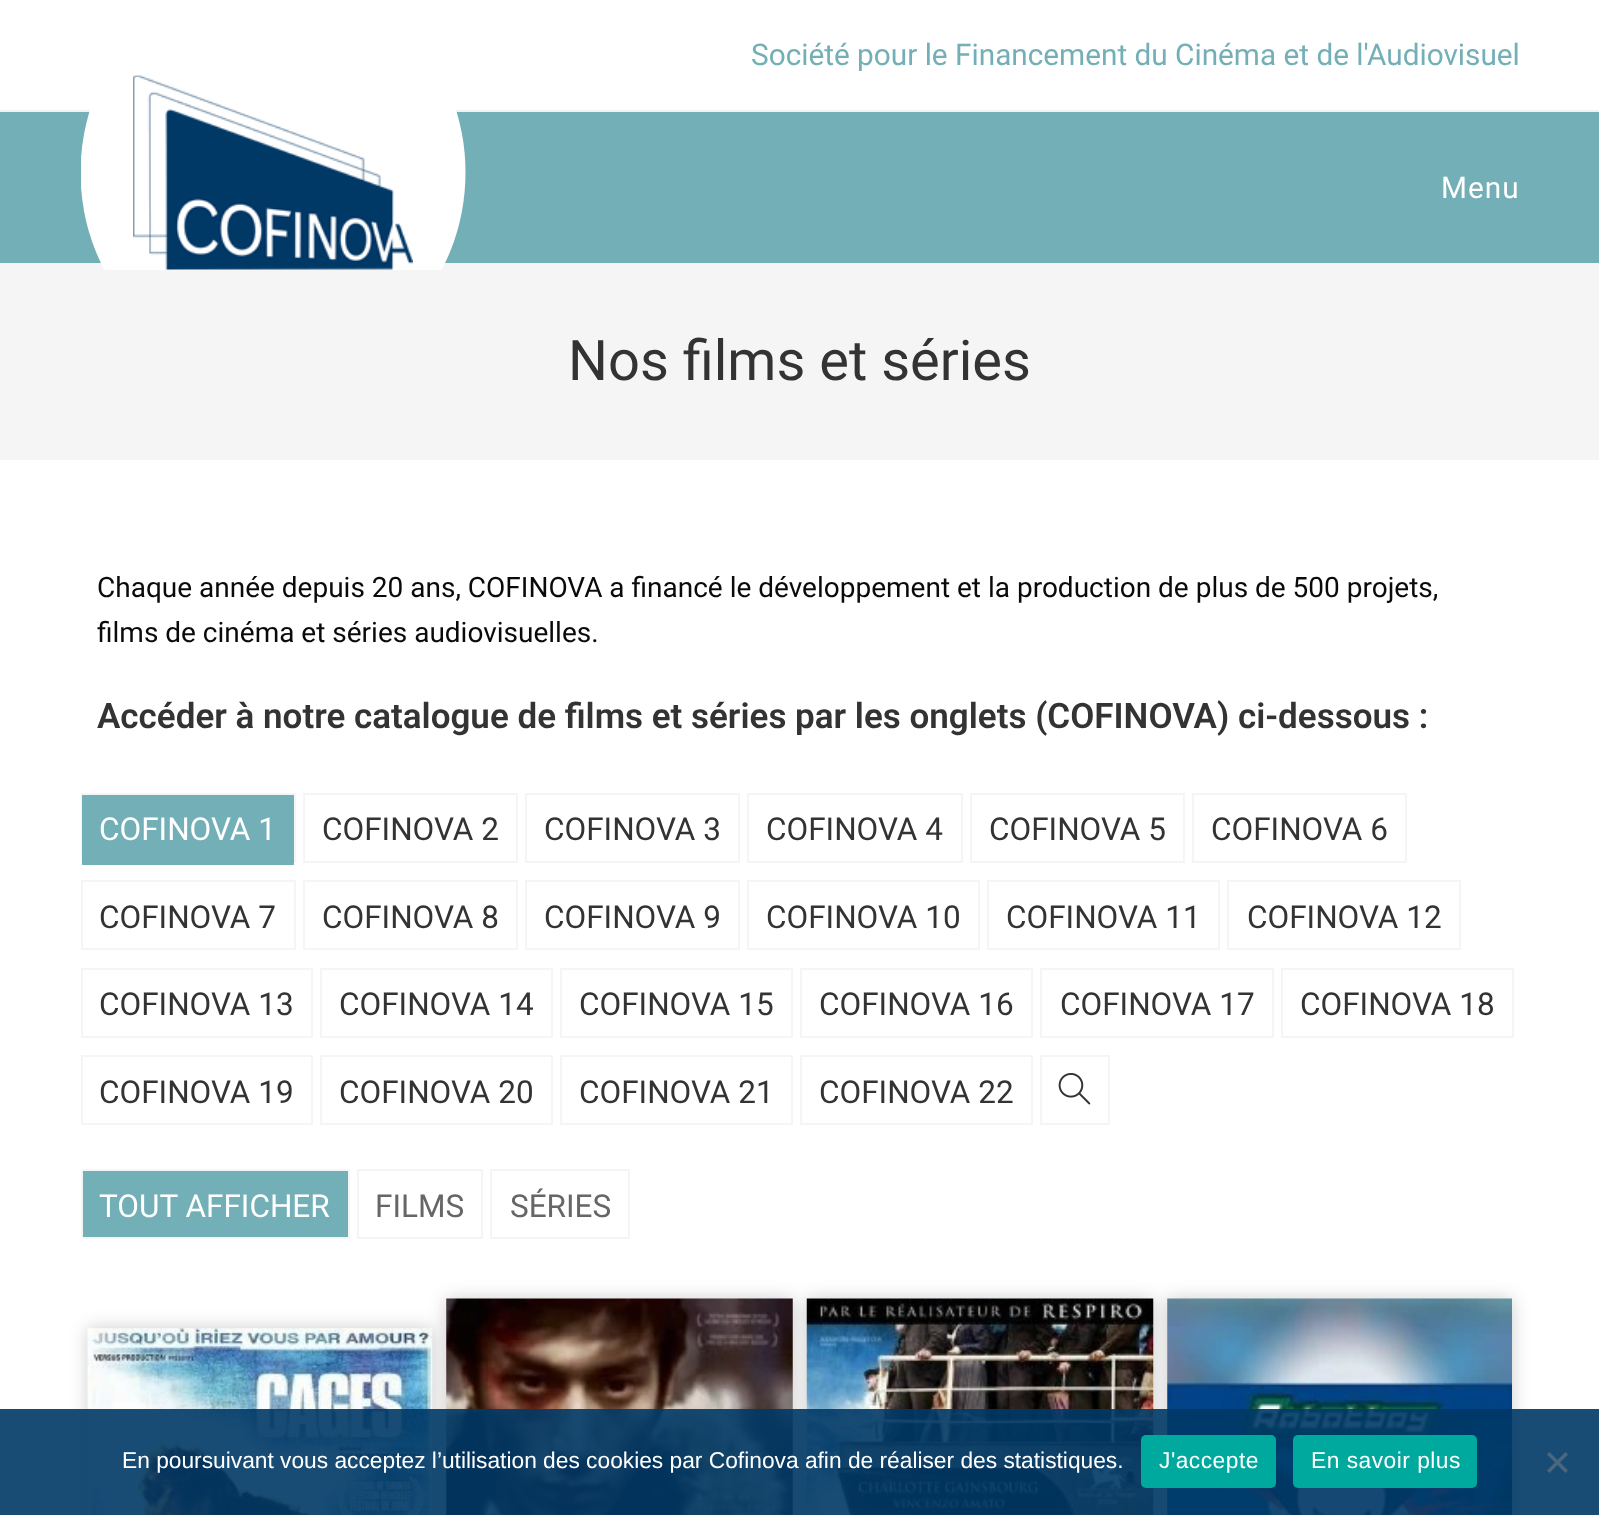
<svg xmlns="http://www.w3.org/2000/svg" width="1599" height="1515">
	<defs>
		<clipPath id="clip1"><rect x="81" y="75" width="385" height="195" /></clipPath>
	</defs>
	<rect width="100%" height="100%" fill="#FFFFFF" />
	<rect x="0" y="110" width="1599" height="2" fill="#F1F1F1" />
	<text x="751" y="65" font-family="Roboto" font-size="29.75" fill="#73AFB6">Société pour le Financement du Cinéma et de l'Audiovisuel</text>
	<rect x="0" y="112" width="1599" height="151" fill="#73AFB6" />
	<rect x="0" y="263" width="1599" height="197" fill="#F5F5F5" />
	<g clip-path="url(#clip1)">
		<ellipse cx="273" cy="172.5" rx="192.5" ry="202" fill="#FFFFFF" />
	</g>
	<image x="133" y="75" width="280" height="195" href="assets/img1.png" />
	<text x="1441" y="198" font-family="Roboto" font-size="29.75" letter-spacing="1" fill="#FFFFFF">Menu</text>
	<text x="568" y="380" font-family="Roboto" font-size="56" fill="#333333">Nos films et séries</text>
	<g font-family="Roboto" font-size="28" fill="#0A0A0A">
		<text x="97" y="597">Chaque année depuis 20 ans, COFINOVA a financé le développement et la production de plus de 500 projets,</text>
		<text x="97" y="642">films de cinéma et séries audiovisuelles.</text>
	</g>
	<text x="97" y="728" font-family="Roboto" font-size="35" font-weight="600" fill="#333333">Accéder à notre catalogue de films et séries par les onglets (COFINOVA) ci-dessous :</text>
	<rect x="82" y="794" width="213" height="68" fill="none" stroke="#F5F5F5" stroke-width="2" />
	<rect x="82" y="795" width="212" height="70" fill="#73AFB6" />
	<text x="99" y="840" font-family="Roboto" font-size="31.5" fill="#FFFFFF">COFINOVA 1</text>
	<rect x="304" y="794" width="213" height="68" fill="none" stroke="#F5F5F5" stroke-width="2" />
	<text x="322" y="840" font-family="Roboto" font-size="31.5" fill="#333333">COFINOVA 2</text>
	<rect x="526" y="794" width="213" height="68" fill="none" stroke="#F5F5F5" stroke-width="2" />
	<text x="544" y="840" font-family="Roboto" font-size="31.5" fill="#333333">COFINOVA 3</text>
	<rect x="748" y="794" width="214" height="68" fill="none" stroke="#F5F5F5" stroke-width="2" />
	<text x="766" y="840" font-family="Roboto" font-size="31.5" fill="#333333">COFINOVA 4</text>
	<rect x="971" y="794" width="213" height="68" fill="none" stroke="#F5F5F5" stroke-width="2" />
	<text x="989" y="840" font-family="Roboto" font-size="31.5" fill="#333333">COFINOVA 5</text>
	<rect x="1193" y="794" width="213" height="68" fill="none" stroke="#F5F5F5" stroke-width="2" />
	<text x="1211" y="840" font-family="Roboto" font-size="31.5" fill="#333333">COFINOVA 6</text>
	<rect x="82" y="881" width="213" height="68" fill="none" stroke="#F5F5F5" stroke-width="2" />
	<text x="99" y="928" font-family="Roboto" font-size="31.5" fill="#333333">COFINOVA 7</text>
	<rect x="304" y="881" width="213" height="68" fill="none" stroke="#F5F5F5" stroke-width="2" />
	<text x="322" y="928" font-family="Roboto" font-size="31.5" fill="#333333">COFINOVA 8</text>
	<rect x="526" y="881" width="213" height="68" fill="none" stroke="#F5F5F5" stroke-width="2" />
	<text x="544" y="928" font-family="Roboto" font-size="31.5" fill="#333333">COFINOVA 9</text>
	<rect x="748" y="881" width="231" height="68" fill="none" stroke="#F5F5F5" stroke-width="2" />
	<text x="766" y="928" font-family="Roboto" font-size="31.5" fill="#333333">COFINOVA 10</text>
	<rect x="988" y="881" width="231" height="68" fill="none" stroke="#F5F5F5" stroke-width="2" />
	<text x="1006" y="928" font-family="Roboto" font-size="31.5" fill="#333333">COFINOVA 11</text>
	<rect x="1228" y="881" width="232" height="68" fill="none" stroke="#F5F5F5" stroke-width="2" />
	<text x="1247" y="928" font-family="Roboto" font-size="31.5" fill="#333333">COFINOVA 12</text>
	<rect x="82" y="969" width="230" height="68" fill="none" stroke="#F5F5F5" stroke-width="2" />
	<text x="99" y="1015" font-family="Roboto" font-size="31.5" fill="#333333">COFINOVA 13</text>
	<rect x="321" y="969" width="231" height="68" fill="none" stroke="#F5F5F5" stroke-width="2" />
	<text x="339" y="1015" font-family="Roboto" font-size="31.5" fill="#333333">COFINOVA 14</text>
	<rect x="561" y="969" width="231" height="68" fill="none" stroke="#F5F5F5" stroke-width="2" />
	<text x="579" y="1015" font-family="Roboto" font-size="31.5" fill="#333333">COFINOVA 15</text>
	<rect x="801" y="969" width="231" height="68" fill="none" stroke="#F5F5F5" stroke-width="2" />
	<text x="819" y="1015" font-family="Roboto" font-size="31.5" fill="#333333">COFINOVA 16</text>
	<rect x="1041" y="969" width="232" height="68" fill="none" stroke="#F5F5F5" stroke-width="2" />
	<text x="1060" y="1015" font-family="Roboto" font-size="31.5" fill="#333333">COFINOVA 17</text>
	<rect x="1282" y="969" width="231" height="68" fill="none" stroke="#F5F5F5" stroke-width="2" />
	<text x="1300" y="1015" font-family="Roboto" font-size="31.5" fill="#333333">COFINOVA 18</text>
	<rect x="82" y="1056" width="230" height="68" fill="none" stroke="#F5F5F5" stroke-width="2" />
	<text x="99" y="1103" font-family="Roboto" font-size="31.5" fill="#333333">COFINOVA 19</text>
	<rect x="321" y="1056" width="231" height="68" fill="none" stroke="#F5F5F5" stroke-width="2" />
	<text x="339" y="1103" font-family="Roboto" font-size="31.5" fill="#333333">COFINOVA 20</text>
	<rect x="561" y="1056" width="231" height="68" fill="none" stroke="#F5F5F5" stroke-width="2" />
	<text x="579" y="1103" font-family="Roboto" font-size="31.5" fill="#333333">COFINOVA 21</text>
	<rect x="801" y="1056" width="231" height="68" fill="none" stroke="#F5F5F5" stroke-width="2" />
	<text x="819" y="1103" font-family="Roboto" font-size="31.5" fill="#333333">COFINOVA 22</text>
	<rect x="1041" y="1056" width="68" height="68" fill="none" stroke="#F5F5F5" stroke-width="2" />
	<image x="1058" y="1073" width="33" height="32" href="assets/img2.png" />
	<rect x="82" y="1170" width="267" height="68" fill="#73AFB6" stroke="#F5F5F5" stroke-width="2" />
	<text x="99" y="1217" font-family="Roboto" font-size="31.5" fill="#FFFFFF">TOUT AFFICHER</text>
	<rect x="358" y="1170" width="124" height="68" fill="none" stroke="#F5F5F5" stroke-width="2" />
	<text x="375" y="1217" font-family="Roboto" font-size="31.5" fill="#666666">FILMS</text>
	<rect x="491" y="1170" width="138" height="68" fill="none" stroke="#F5F5F5" stroke-width="2" />
	<text x="510" y="1217" font-family="Roboto" font-size="31.5" fill="#666666">SÉRIES</text>
	<rect x="88" y="1328" width="344" height="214" fill="#000000" fill-opacity="0.2" filter="blur(9px)" />
	<image x="87" y="1328" width="346" height="187" href="assets/img3.png" />
	<rect x="446" y="1299" width="347" height="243" fill="#000000" fill-opacity="0.2" filter="blur(9px)" />
	<image x="446" y="1298" width="347" height="217" href="assets/img4.png" />
	<rect x="807" y="1299" width="346" height="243" fill="#000000" fill-opacity="0.2" filter="blur(9px)" />
	<image x="806" y="1298" width="348" height="217" href="assets/img5.png" />
	<rect x="1167" y="1299" width="345" height="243" fill="#000000" fill-opacity="0.2" filter="blur(9px)" />
	<image x="1167" y="1298" width="345" height="217" href="assets/img6.png" />
	<rect x="0" y="1409" width="1599" height="106" fill="#003866" fill-opacity="0.9" />
	<text x="122" y="1468" font-family="Liberation Sans" font-size="22.75" fill="#FFFFFF">En poursuivant vous acceptez l’utilisation des cookies par Cofinova afin de réaliser des statistiques.</text>
	<rect x="1141" y="1435" width="135" height="53" rx="5" fill="#00A99D" />
	<text x="1159" y="1468" font-family="Liberation Sans" font-size="22.75" letter-spacing="0.5" fill="#FFFFFF">J'accepte</text>
	<rect x="1293" y="1435" width="184" height="53" rx="5" fill="#00A99D" />
	<text x="1311" y="1468" font-family="Liberation Sans" font-size="22.75" letter-spacing="0.5" fill="#FFFFFF">En savoir plus</text>
	<path d="M1565.5 1452L1568 1454.5L1549.5 1473L1547 1470.5Z" fill="#4D667B" />
	<path d="M1547 1454.5L1549.5 1452L1568 1470.5L1565.5 1473Z" fill="#4D667B" />
</svg>
